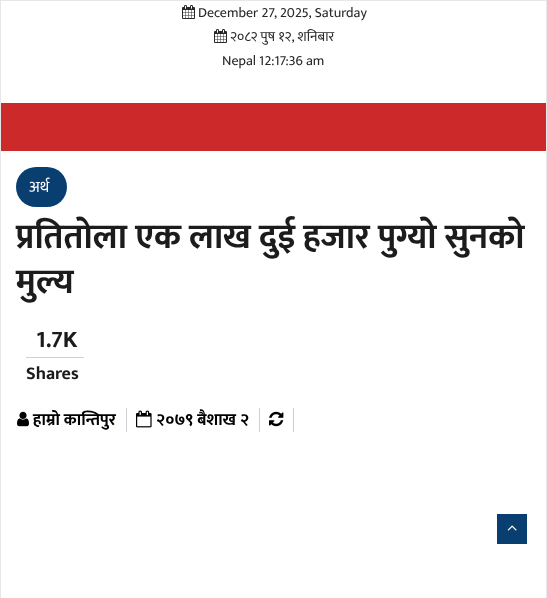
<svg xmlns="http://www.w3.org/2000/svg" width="547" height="598">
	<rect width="100%" height="100%" fill="#FFFFFF" />
	<rect x="0.5" y="0.5" width="546" height="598" fill="none" stroke="#E7E7E7" />
	<image x="182" y="5" width="13" height="14" href="assets/img1.png" />
	<text x="198" y="17" font-family="Mukta" font-size="14" fill="#282828">December 27, 2025, Saturday</text>
	<image x="214" y="29" width="13" height="14" href="assets/img1.png" />
	<g font-family="Mukta" font-size="14" fill="#282828">
		<text x="230" y="41">२०८२ पुष १२, शनिबार</text>
		<text x="222" y="65">Nepal 12:17:36 am</text>
	</g>
	<rect x="1" y="103" width="545" height="48" fill="#CC292A" />
	<rect x="16" y="167" width="51" height="40" rx="20" fill="#093E70" />
	<text x="29" y="192" font-family="Mukta" font-size="16" fill="#FFFFFF">अर्थ</text>
	<g font-family="Mukta" font-size="35" font-weight="700" fill="#1C1C1C">
		<text x="16" y="248">प्रतितोला एक लाख दुई हजार पुग्यो सुनको</text>
		<text x="16" y="293">मुल्य</text>
	</g>
	<rect x="26" y="357" width="58" height="1" fill="#D0D0D0" />
	<text x="36" y="347" font-family="Mukta" font-size="24" font-weight="700" fill="#1C1C1C">1.7K</text>
	<text x="26" y="379" font-family="Mukta" font-size="18" font-weight="700" fill="#1C1C1C">Shares</text>
	<rect x="126" y="408" width="1" height="24" fill="#CDCFD4" />
	<image x="17" y="411" width="12" height="16" href="assets/img2.png" />
	<text x="33" y="425" font-family="Mukta" font-size="16.75" font-weight="700" fill="#000000">हाम्रो कान्तिपुर</text>
	<rect x="259" y="408" width="1" height="24" fill="#CDCFD4" />
	<image x="136" y="410" width="16" height="18" href="assets/img3.png" />
	<text x="156" y="425" font-family="Mukta" font-size="16.75" font-weight="700" fill="#000000">२०७९ बैशाख २</text>
	<rect x="293" y="408" width="1" height="24" fill="#CDCFD4" />
	<image x="269" y="411" width="15" height="16" href="assets/img4.png" />
	<rect x="497" y="514" width="30" height="30" fill="#093E70" />
	<image x="507" y="525" width="10" height="6" href="assets/img5.png" />
</svg>
